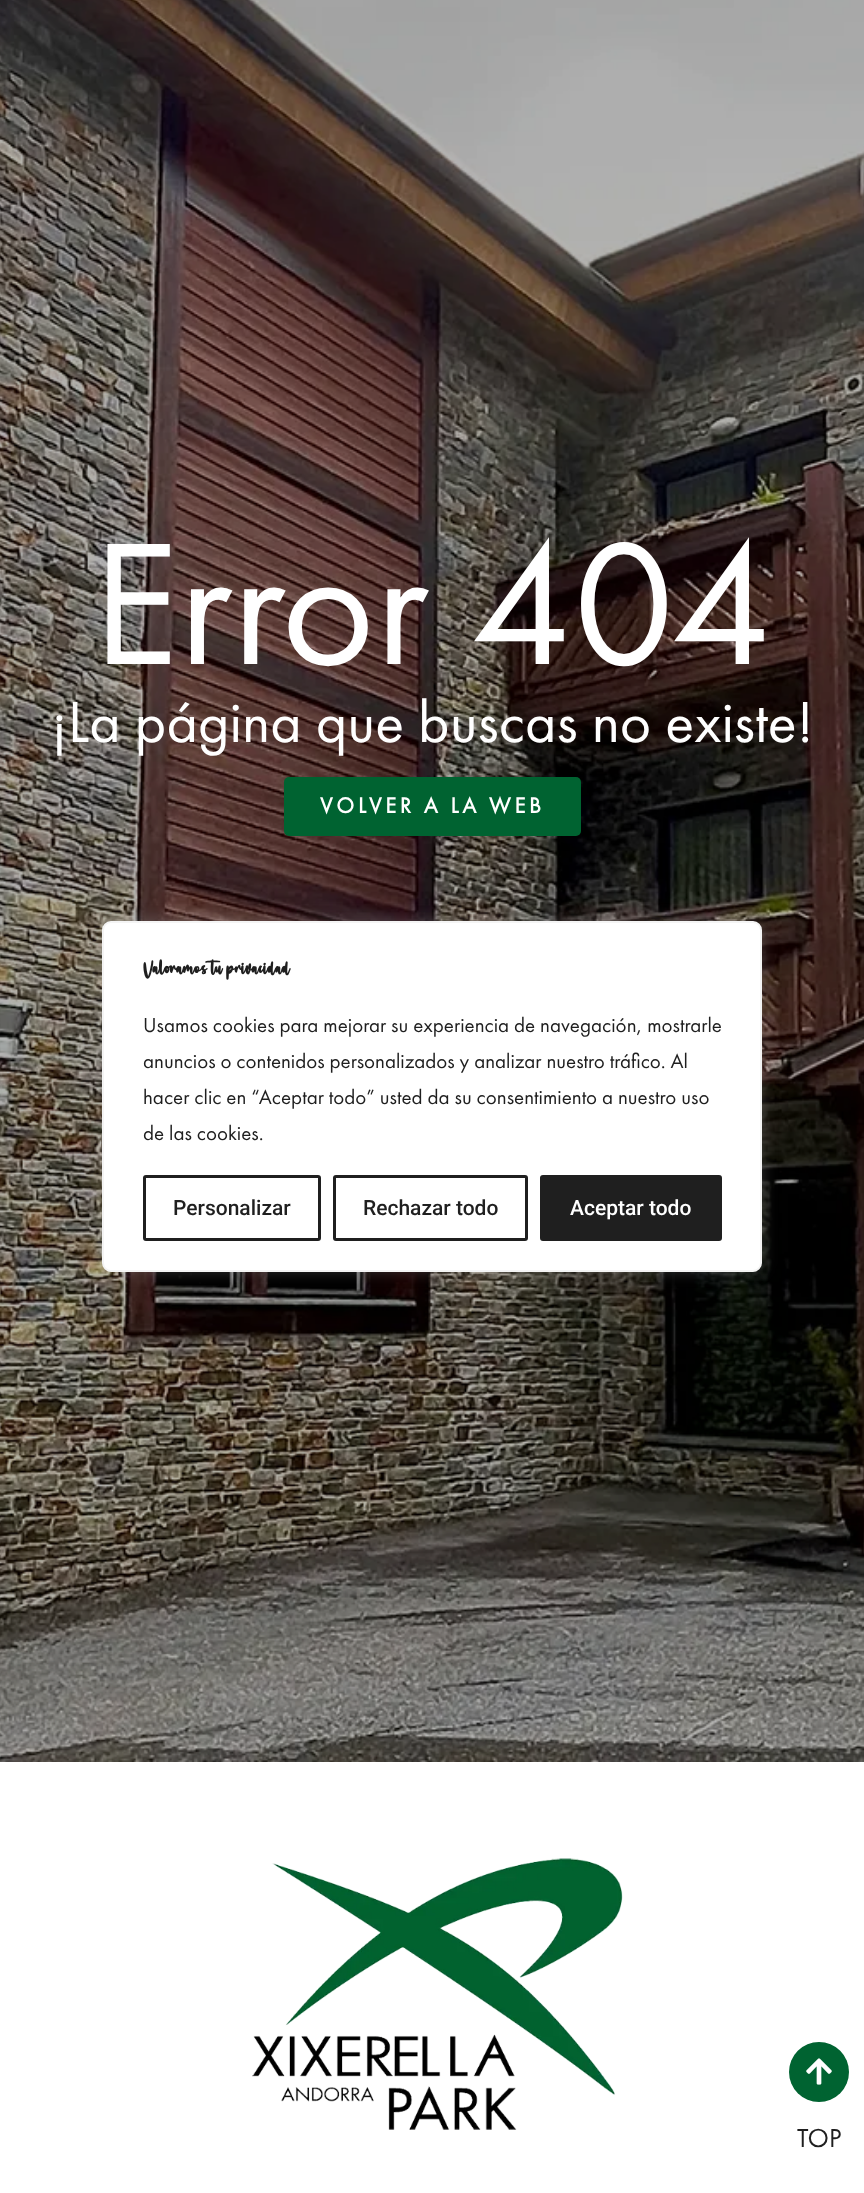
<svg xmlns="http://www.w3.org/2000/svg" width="864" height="2193">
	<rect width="100%" height="100%" fill="#FFFFFF" />
	<image x="0" y="0" width="864" height="1762" href="assets/img1.png" />
	<text x="92" y="664" font-family="Futura PT" font-size="180" fill="#FFFFFF">Error 404</text>
	<text x="51" y="742" font-family="Futura PT" font-size="60" fill="#FFFFFF">¡La página que buscas no existe!</text>
	<rect x="284" y="777" width="297" height="59" rx="5" fill="#006331" />
	<text x="320" y="813" font-family="Futura PT" font-size="22.5" font-weight="700" letter-spacing="3.75" fill="#FFFFFF">VOLVER A LA WEB</text>
	<rect x="102" y="920" width="660" height="351" rx="9" fill="#ACABAB" fill-opacity="0.3" filter="blur(7.5px)" />
	<rect x="103" y="922" width="658" height="349" rx="8" fill="#FFFFFF" stroke="#F4F4F4" stroke-width="2" />
	<text x="143" y="977" font-family="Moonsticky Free" font-size="27" font-weight="700" fill="#1F1F1F">Valoramos tu privacidad</text>
	<g font-family="Futura PT" font-size="21" fill="#1F1F1F">
		<text x="143" y="1032">Usamos cookies para mejorar su experiencia de navegación, mostrarle</text>
		<text x="143" y="1068">anuncios o contenidos personalizados y analizar nuestro tráfico. Al</text>
		<text x="143" y="1104">hacer clic en “Aceptar todo” usted da su consentimiento a nuestro uso</text>
		<text x="143" y="1140">de las cookies.</text>
	</g>
	<rect x="144.5" y="1176.5" width="175" height="63" rx="1.5" fill="none" stroke="#1F1F1F" stroke-width="3" />
	<text x="173" y="1215" font-family="Roboto" font-size="21" font-weight="500" fill="#1F1F1F">Personalizar</text>
	<rect x="334.5" y="1176.5" width="192" height="63" rx="1.5" fill="none" stroke="#1F1F1F" stroke-width="3" />
	<text x="363" y="1215" font-family="Roboto" font-size="21" font-weight="500" fill="#1F1F1F">Rechazar todo</text>
	<rect x="541.5" y="1176.5" width="179" height="63" rx="1.5" fill="#1F1F1F" stroke="#1F1F1F" stroke-width="3" />
	<text x="570" y="1215" font-family="Roboto" font-size="21" font-weight="500" fill="#FFFFFF">Aceptar todo</text>
	<image x="252" y="1858" width="371" height="272" href="assets/img2.png" />
	<circle cx="819" cy="2072" r="30" fill="#006331" />
	<image x="806" y="2058" width="26" height="27" href="assets/img3.png" />
	<text x="797" y="2147" font-family="Futura PT" font-size="27" fill="#1F1F1F">TOP</text>
</svg>
